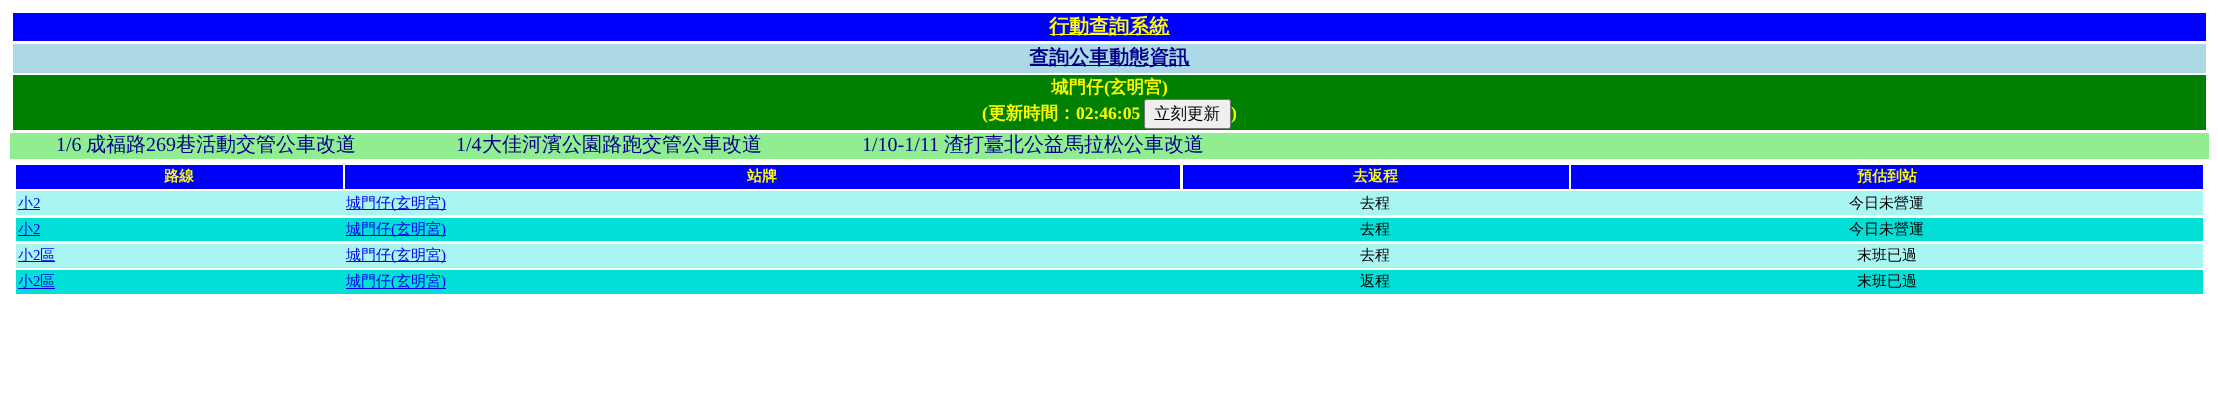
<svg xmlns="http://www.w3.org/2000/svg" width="2218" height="397">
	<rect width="100%" height="100%" fill="#FFFFFF" />
	<rect x="13" y="13" width="2193" height="28" fill="#0000FF" />
	<rect x="1050" y="34" width="120" height="1" fill="#FFFF00" />
	<text x="1049" y="33" font-family="WenQuanYi Zen Hei" font-size="20" font-weight="700" fill="#FFFF00">行動查詢系統</text>
	<rect x="13" y="44" width="2193" height="29" fill="#ADD8E6" />
	<rect x="1030" y="65" width="160" height="1" fill="#00008B" />
	<text x="1029" y="64" font-family="WenQuanYi Zen Hei" font-size="20" font-weight="700" fill="#00008B">查詢公車動態資訊</text>
	<rect x="13" y="75" width="2193" height="55" fill="#008000" />
	<text x="1051" y="93" font-family="WenQuanYi Zen Hei" font-size="17.5" font-weight="700" fill="#FFFF00">城門仔</text>
	<text x="1104" y="93" font-family="Liberation Serif" font-size="17.5" font-weight="700" fill="#FFFF00">(</text>
	<text x="1109" y="93" font-family="WenQuanYi Zen Hei" font-size="17.5" font-weight="700" fill="#FFFF00">玄明宮</text>
	<g font-family="Liberation Serif" font-size="17.5" font-weight="700" fill="#FFFF00">
		<text x="1162" y="93">)</text>
		<text x="982" y="119">(</text>
	</g>
	<text x="988" y="119" font-family="WenQuanYi Zen Hei" font-size="17.5" font-weight="700" fill="#FFFF00">更新時間：</text>
	<text x="1076" y="119" font-family="Liberation Serif" font-size="17.5" font-weight="700" fill="#FFFF00">02:46:05</text>
	<rect x="1144.5" y="99.5" width="86" height="29" rx="2" fill="#EFEFEF" stroke="#767676" />
	<text x="1154" y="119" font-family="WenQuanYi Zen Hei" font-size="16.5" font-weight="500" fill="#000000">立刻更新</text>
	<text x="1231" y="119" font-family="Liberation Serif" font-size="17.5" font-weight="700" fill="#FFFF00">)</text>
	<rect x="10" y="133" width="2199" height="26" fill="#90EE90" />
	<text x="56" y="151" font-family="Liberation Serif" font-size="20" fill="#00008B">1/6</text>
	<text x="86" y="151" font-family="WenQuanYi Zen Hei" font-size="20" font-weight="500" fill="#00008B">成福路</text>
	<text x="146" y="151" font-family="Liberation Serif" font-size="20" fill="#00008B">269</text>
	<text x="176" y="151" font-family="WenQuanYi Zen Hei" font-size="20" font-weight="500" fill="#00008B">巷活動交管公車改道</text>
	<text x="456" y="151" font-family="Liberation Serif" font-size="20" fill="#00008B">1/4</text>
	<text x="482" y="151" font-family="WenQuanYi Zen Hei" font-size="20" font-weight="500" fill="#00008B">大佳河濱公園路跑交管公車改道</text>
	<text x="862" y="151" font-family="Liberation Serif" font-size="20" fill="#00008B">1/10-1/11</text>
	<text x="944" y="151" font-family="WenQuanYi Zen Hei" font-size="20" font-weight="500" fill="#00008B">渣打臺北公益馬拉松公車改道</text>
	<rect x="16" y="165" width="327" height="24" fill="#0000FF" />
	<text x="164" y="181" font-family="WenQuanYi Zen Hei" font-size="15" font-weight="700" fill="#FFFF00">路線</text>
	<rect x="345" y="165" width="835" height="24" fill="#0000FF" />
	<text x="747" y="181" font-family="WenQuanYi Zen Hei" font-size="15" font-weight="700" fill="#FFFF00">站牌</text>
	<rect x="1183" y="165" width="386" height="24" fill="#0000FF" />
	<text x="1353" y="181" font-family="WenQuanYi Zen Hei" font-size="15" font-weight="700" fill="#FFFF00">去返程</text>
	<rect x="1571" y="165" width="632" height="24" fill="#0000FF" />
	<text x="1857" y="181" font-family="WenQuanYi Zen Hei" font-size="15" font-weight="700" fill="#FFFF00">預估到站</text>
	<rect x="16" y="191" width="2187" height="24" fill="#A9F5F2" />
	<rect x="18" y="209" width="22" height="1" fill="#0000EE" />
	<text x="18" y="208" font-family="WenQuanYi Zen Hei" font-size="15" font-weight="500" fill="#0000EE">小</text>
	<text x="33" y="208" font-family="Liberation Serif" font-size="15" fill="#0000EE">2</text>
	<rect x="346" y="209" width="100" height="1" fill="#0000EE" />
	<text x="346" y="208" font-family="WenQuanYi Zen Hei" font-size="15" font-weight="500" fill="#0000EE">城門仔</text>
	<text x="391" y="208" font-family="Liberation Serif" font-size="15" fill="#0000EE">(</text>
	<text x="396" y="208" font-family="WenQuanYi Zen Hei" font-size="15" font-weight="500" fill="#0000EE">玄明宮</text>
	<text x="441" y="208" font-family="Liberation Serif" font-size="15" fill="#0000EE">)</text>
	<g font-family="WenQuanYi Zen Hei" font-size="15" font-weight="500" fill="#000000">
		<text x="1360" y="208">去程</text>
		<text x="1849" y="208">今日未營運</text>
	</g>
	<rect x="16" y="218" width="2187" height="23" fill="#01DFD7" />
	<rect x="18" y="235" width="22" height="1" fill="#0000EE" />
	<text x="18" y="234" font-family="WenQuanYi Zen Hei" font-size="15" font-weight="500" fill="#0000EE">小</text>
	<text x="33" y="234" font-family="Liberation Serif" font-size="15" fill="#0000EE">2</text>
	<rect x="346" y="235" width="100" height="1" fill="#0000EE" />
	<text x="346" y="234" font-family="WenQuanYi Zen Hei" font-size="15" font-weight="500" fill="#0000EE">城門仔</text>
	<text x="391" y="234" font-family="Liberation Serif" font-size="15" fill="#0000EE">(</text>
	<text x="396" y="234" font-family="WenQuanYi Zen Hei" font-size="15" font-weight="500" fill="#0000EE">玄明宮</text>
	<text x="441" y="234" font-family="Liberation Serif" font-size="15" fill="#0000EE">)</text>
	<g font-family="WenQuanYi Zen Hei" font-size="15" font-weight="500" fill="#000000">
		<text x="1360" y="234">去程</text>
		<text x="1849" y="234">今日未營運</text>
	</g>
	<rect x="16" y="244" width="2187" height="24" fill="#A9F5F2" />
	<rect x="18" y="261" width="37" height="1" fill="#0000EE" />
	<text x="18" y="260" font-family="WenQuanYi Zen Hei" font-size="15" font-weight="500" fill="#0000EE">小</text>
	<text x="33" y="260" font-family="Liberation Serif" font-size="15" fill="#0000EE">2</text>
	<text x="40" y="260" font-family="WenQuanYi Zen Hei" font-size="15" font-weight="500" fill="#0000EE">區</text>
	<rect x="346" y="261" width="100" height="1" fill="#0000EE" />
	<text x="346" y="260" font-family="WenQuanYi Zen Hei" font-size="15" font-weight="500" fill="#0000EE">城門仔</text>
	<text x="391" y="260" font-family="Liberation Serif" font-size="15" fill="#0000EE">(</text>
	<text x="396" y="260" font-family="WenQuanYi Zen Hei" font-size="15" font-weight="500" fill="#0000EE">玄明宮</text>
	<text x="441" y="260" font-family="Liberation Serif" font-size="15" fill="#0000EE">)</text>
	<g font-family="WenQuanYi Zen Hei" font-size="15" font-weight="500" fill="#000000">
		<text x="1360" y="260">去程</text>
		<text x="1857" y="260">末班已過</text>
	</g>
	<rect x="16" y="270" width="2187" height="24" fill="#01DFD7" />
	<text x="18" y="286" font-family="WenQuanYi Zen Hei" font-size="15" font-weight="500" fill="#0000EE">小</text>
	<text x="33" y="286" font-family="Liberation Serif" font-size="15" fill="#0000EE">2</text>
	<rect x="18" y="288" width="37" height="1" fill="#0000EE" />
	<g font-family="WenQuanYi Zen Hei" font-size="15" font-weight="500" fill="#0000EE">
		<text x="40" y="286">區</text>
		<text x="346" y="286">城門仔</text>
	</g>
	<rect x="346" y="288" width="100" height="1" fill="#0000EE" />
	<text x="391" y="286" font-family="Liberation Serif" font-size="15" fill="#0000EE">(</text>
	<text x="396" y="286" font-family="WenQuanYi Zen Hei" font-size="15" font-weight="500" fill="#0000EE">玄明宮</text>
	<text x="441" y="286" font-family="Liberation Serif" font-size="15" fill="#0000EE">)</text>
	<g font-family="WenQuanYi Zen Hei" font-size="15" font-weight="500" fill="#000000">
		<text x="1360" y="286">返程</text>
		<text x="1857" y="286">末班已過</text>
	</g>
</svg>
